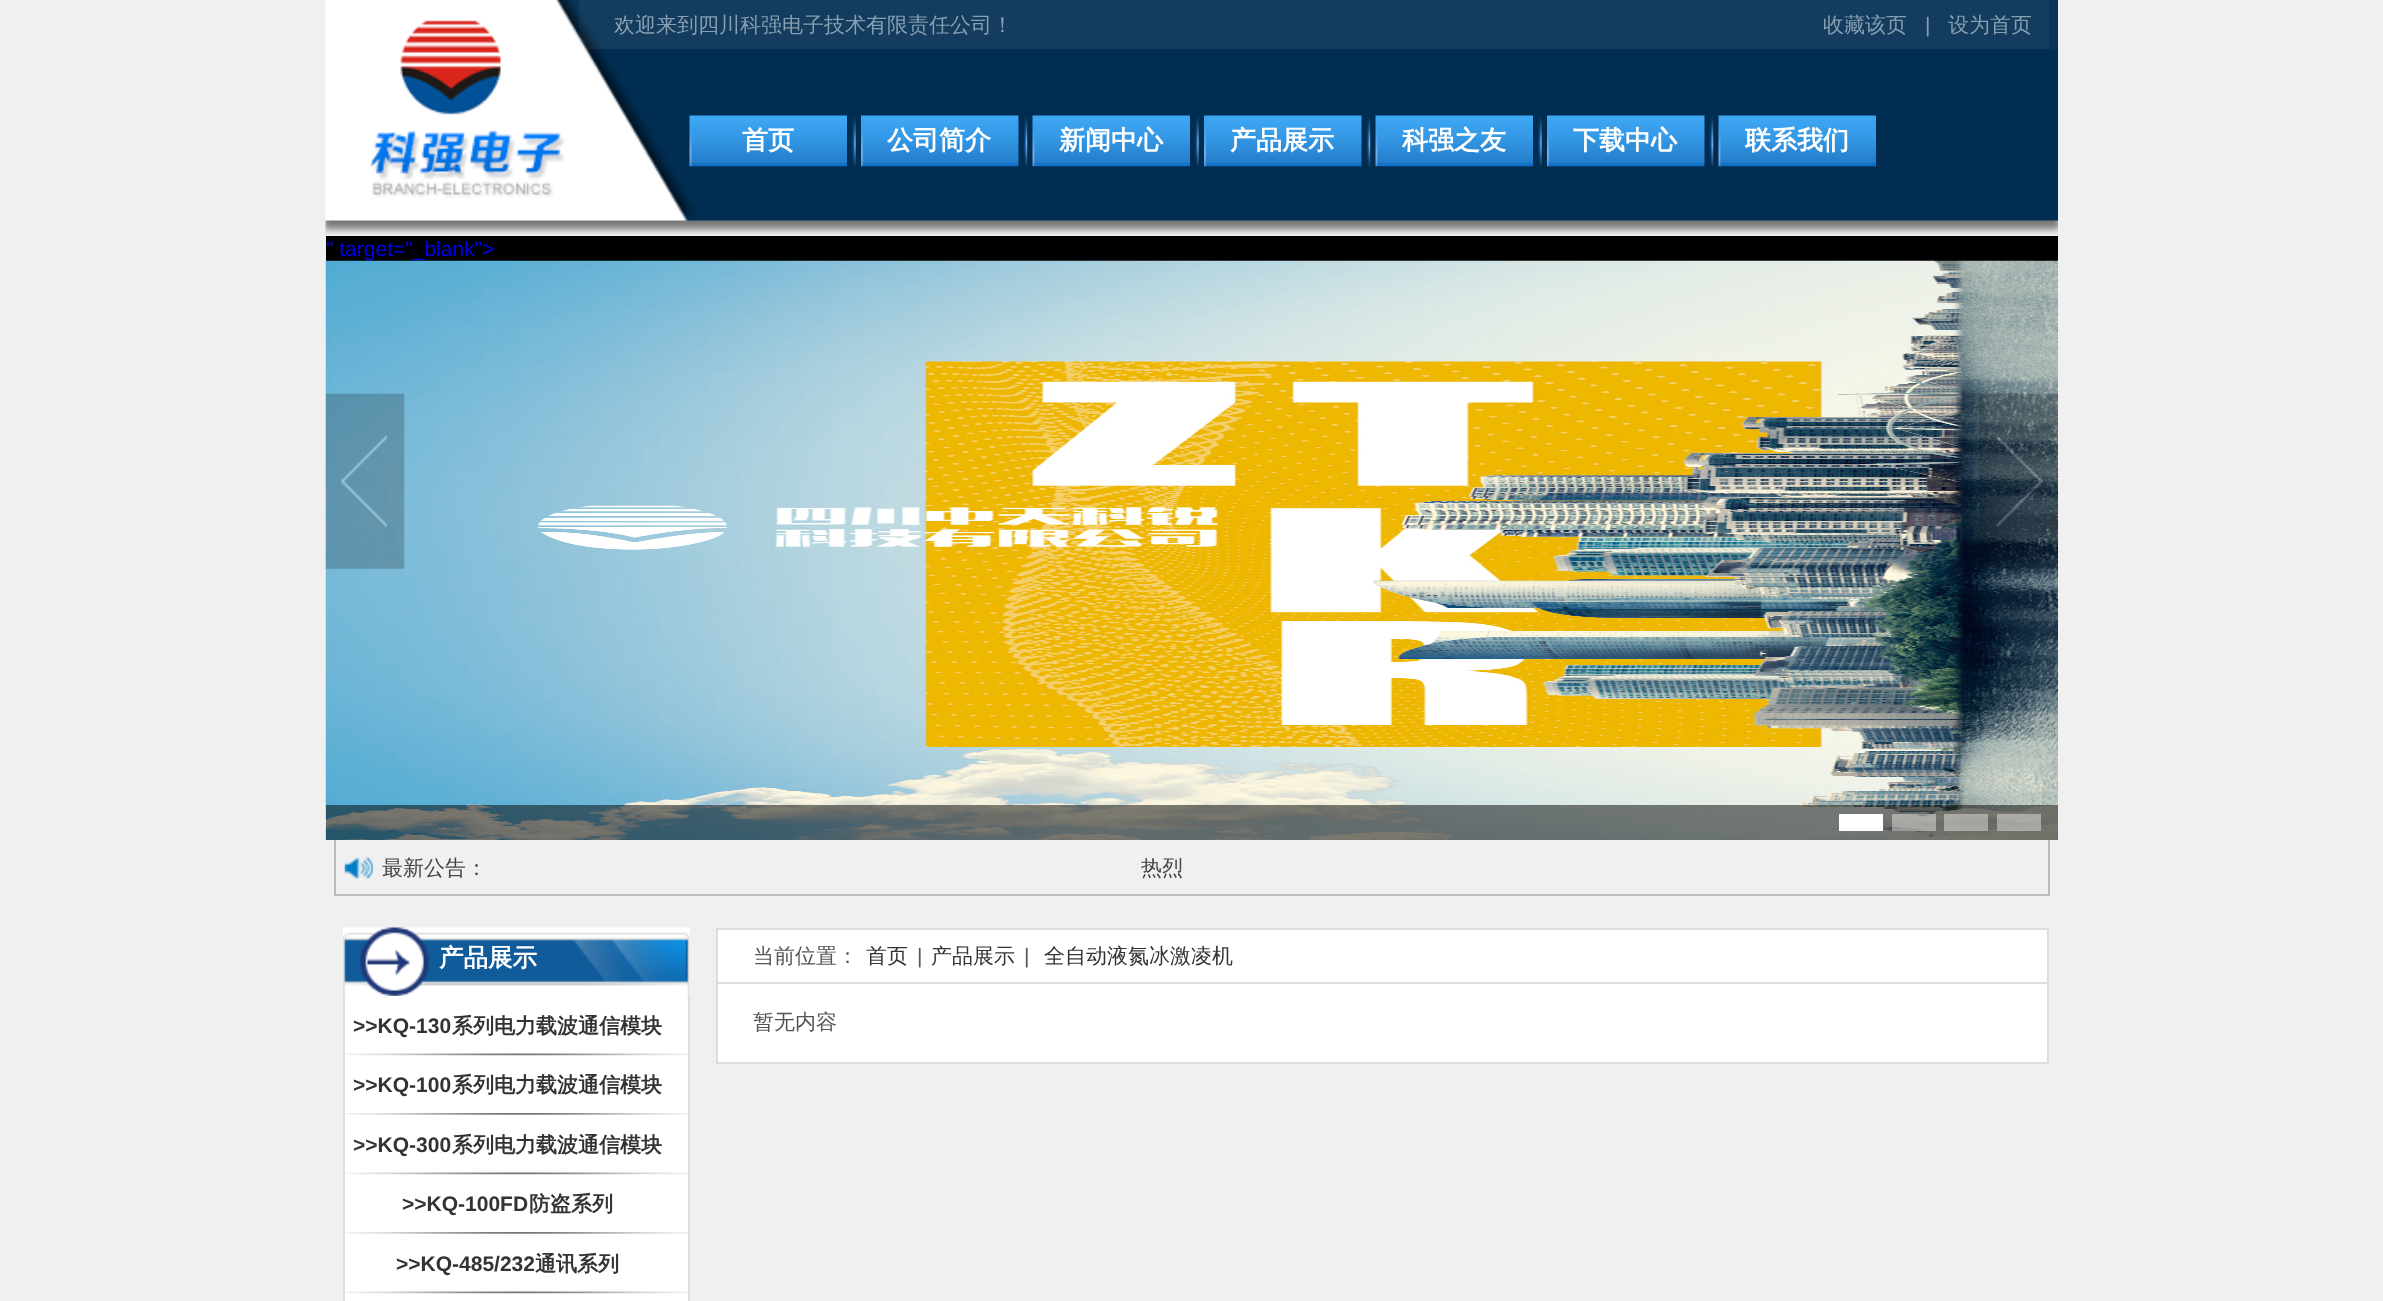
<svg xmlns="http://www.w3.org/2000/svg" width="2383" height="1301">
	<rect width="100%" height="100%" fill="#F0F0F0" />
	<image x="325" y="0" width="1733" height="235" href="assets/img1.png" />
	<rect x="579" y="0" width="1470" height="49" fill="#FFFFFF" fill-opacity="0.04" />
	<g font-family="WenQuanYi Zen Hei" font-size="21" font-weight="500" fill="#869FB2">
		<text x="614" y="32">欢迎来到四川科强电子技术有限责任公司！</text>
		<text x="1823" y="32">收藏该页</text>
	</g>
	<text x="1925" y="32" font-family="Liberation Sans" font-size="21" fill="#869FB2">|</text>
	<text x="1948" y="32" font-family="WenQuanYi Zen Hei" font-size="21" font-weight="500" fill="#869FB2">设为首页</text>
	<image x="689" y="115" width="158" height="52" href="assets/img2.png" />
	<text x="742" y="149" font-family="WenQuanYi Zen Hei" font-size="26" font-weight="700" fill="#FFFFFF">首页</text>
	<image x="852" y="116" width="4" height="50" href="assets/img3.png" />
	<image x="861" y="115" width="158" height="52" href="assets/img4.png" />
	<text x="887" y="149" font-family="WenQuanYi Zen Hei" font-size="26" font-weight="700" fill="#FFFFFF">公司简介</text>
	<image x="1023" y="116" width="5" height="51" href="assets/img5.png" />
	<image x="1032" y="115" width="158" height="52" href="assets/img2.png" />
	<text x="1059" y="149" font-family="WenQuanYi Zen Hei" font-size="26" font-weight="700" fill="#FFFFFF">新闻中心</text>
	<image x="1195" y="116" width="4" height="50" href="assets/img3.png" />
	<image x="1204" y="115" width="158" height="52" href="assets/img4.png" />
	<text x="1230" y="149" font-family="WenQuanYi Zen Hei" font-size="26" font-weight="700" fill="#FFFFFF">产品展示</text>
	<image x="1366" y="116" width="5" height="51" href="assets/img5.png" />
	<image x="1375" y="115" width="158" height="52" href="assets/img2.png" />
	<text x="1402" y="149" font-family="WenQuanYi Zen Hei" font-size="26" font-weight="700" fill="#FFFFFF">科强之友</text>
	<image x="1538" y="116" width="4" height="50" href="assets/img3.png" />
	<image x="1547" y="115" width="158" height="52" href="assets/img4.png" />
	<text x="1573" y="149" font-family="WenQuanYi Zen Hei" font-size="26" font-weight="700" fill="#FFFFFF">下载中心</text>
	<image x="1709" y="116" width="5" height="51" href="assets/img6.png" />
	<image x="1718" y="115" width="158" height="52" href="assets/img2.png" />
	<text x="1745" y="149" font-family="WenQuanYi Zen Hei" font-size="26" font-weight="700" fill="#FFFFFF">联系我们</text>
	<rect x="326" y="236" width="1732" height="25" fill="#000000" />
	<text x="326" y="256" font-family="Liberation Sans" font-size="21" fill="#0000EE">" target="_blank"&gt;</text>
	<image x="325" y="260" width="1733" height="580" href="assets/img7.png" />
	<image x="325" y="393" width="80" height="176" href="assets/img8.png" />
	<image x="1979" y="393" width="79" height="176" href="assets/img9.png" />
	<rect x="326" y="805" width="1732" height="35" fill="#000000" fill-opacity="0.5" />
	<rect x="1839" y="814" width="44" height="17" fill="#FFFFFF" />
	<rect x="1892" y="814" width="44" height="17" fill="#FFFFFF" fill-opacity="0.4" />
	<rect x="1944" y="814" width="44" height="17" fill="#FFFFFF" fill-opacity="0.4" />
	<rect x="1997" y="814" width="44" height="17" fill="#FFFFFF" fill-opacity="0.4" />
	<rect x="2048" y="840" width="2" height="56" fill="#BDBDBD" />
	<rect x="334" y="894" width="1715" height="2" fill="#BDBDBD" />
	<rect x="334" y="840" width="2" height="56" fill="#BDBDBD" />
	<image x="344" y="857" width="29" height="22" href="assets/img10.png" />
	<g font-family="WenQuanYi Zen Hei" font-size="21" font-weight="500" fill="#444444">
		<text x="382" y="875">最新公告：</text>
		<text x="1141" y="875">热烈</text>
	</g>
	<rect x="343" y="928" width="347" height="373" fill="#FFFFFF" />
	<image x="343" y="927" width="347" height="69" href="assets/img11.png" />
	<text x="439" y="966" font-family="WenQuanYi Zen Hei" font-size="24.5" font-weight="700" fill="#FFFFFF">产品展示</text>
	<rect x="688" y="996" width="2" height="305" fill="#DCDDDE" />
	<rect x="343" y="996" width="2" height="305" fill="#DCDDDE" />
	<image x="344" y="1053" width="344" height="3" href="assets/img12.png" />
	<text x="353" y="1033" font-family="Liberation Sans" font-size="21" font-weight="700" fill="#333333">&gt;&gt;KQ-130</text>
	<text x="452" y="1033" font-family="WenQuanYi Zen Hei" font-size="21" font-weight="700" fill="#333333">系列电力载波通信模块</text>
	<image x="344" y="1113" width="344" height="2" href="assets/img13.png" />
	<text x="353" y="1092" font-family="Liberation Sans" font-size="21" font-weight="700" fill="#333333">&gt;&gt;KQ-100</text>
	<text x="452" y="1092" font-family="WenQuanYi Zen Hei" font-size="21" font-weight="700" fill="#333333">系列电力载波通信模块</text>
	<image x="344" y="1172" width="344" height="3" href="assets/img12.png" />
	<text x="353" y="1152" font-family="Liberation Sans" font-size="21" font-weight="700" fill="#333333">&gt;&gt;KQ-300</text>
	<text x="452" y="1152" font-family="WenQuanYi Zen Hei" font-size="21" font-weight="700" fill="#333333">系列电力载波通信模块</text>
	<image x="344" y="1232" width="344" height="2" href="assets/img13.png" />
	<text x="402" y="1211" font-family="Liberation Sans" font-size="21" font-weight="700" fill="#333333">&gt;&gt;KQ-100FD</text>
	<text x="529" y="1211" font-family="WenQuanYi Zen Hei" font-size="21" font-weight="700" fill="#333333">防盗系列</text>
	<image x="344" y="1291" width="344" height="3" href="assets/img12.png" />
	<text x="396" y="1271" font-family="Liberation Sans" font-size="21" font-weight="700" fill="#333333">&gt;&gt;KQ-485/232</text>
	<text x="535" y="1271" font-family="WenQuanYi Zen Hei" font-size="21" font-weight="700" fill="#333333">通讯系列</text>
	<rect x="717" y="929" width="1331" height="134" fill="#FFFFFF" stroke="#DCDDDE" stroke-width="2" />
	<rect x="718" y="982" width="1330" height="2" fill="#DCDDDE" />
	<text x="753" y="963" font-family="WenQuanYi Zen Hei" font-size="21" font-weight="500" fill="#545557">当前位置：</text>
	<text x="866" y="963" font-family="WenQuanYi Zen Hei" font-size="21" font-weight="500" fill="#333333">首页</text>
	<text x="917" y="963" font-family="Liberation Sans" font-size="21" fill="#545557">|</text>
	<text x="931" y="963" font-family="WenQuanYi Zen Hei" font-size="21" font-weight="500" fill="#333333">产品展示</text>
	<text x="1024" y="963" font-family="Liberation Sans" font-size="21" fill="#545557">|</text>
	<text x="1044" y="963" font-family="WenQuanYi Zen Hei" font-size="21" font-weight="500" fill="#333333">全自动液氮冰激凌机</text>
	<text x="753" y="1029" font-family="WenQuanYi Zen Hei" font-size="21" font-weight="500" fill="#545557">暂无内容</text>
</svg>
